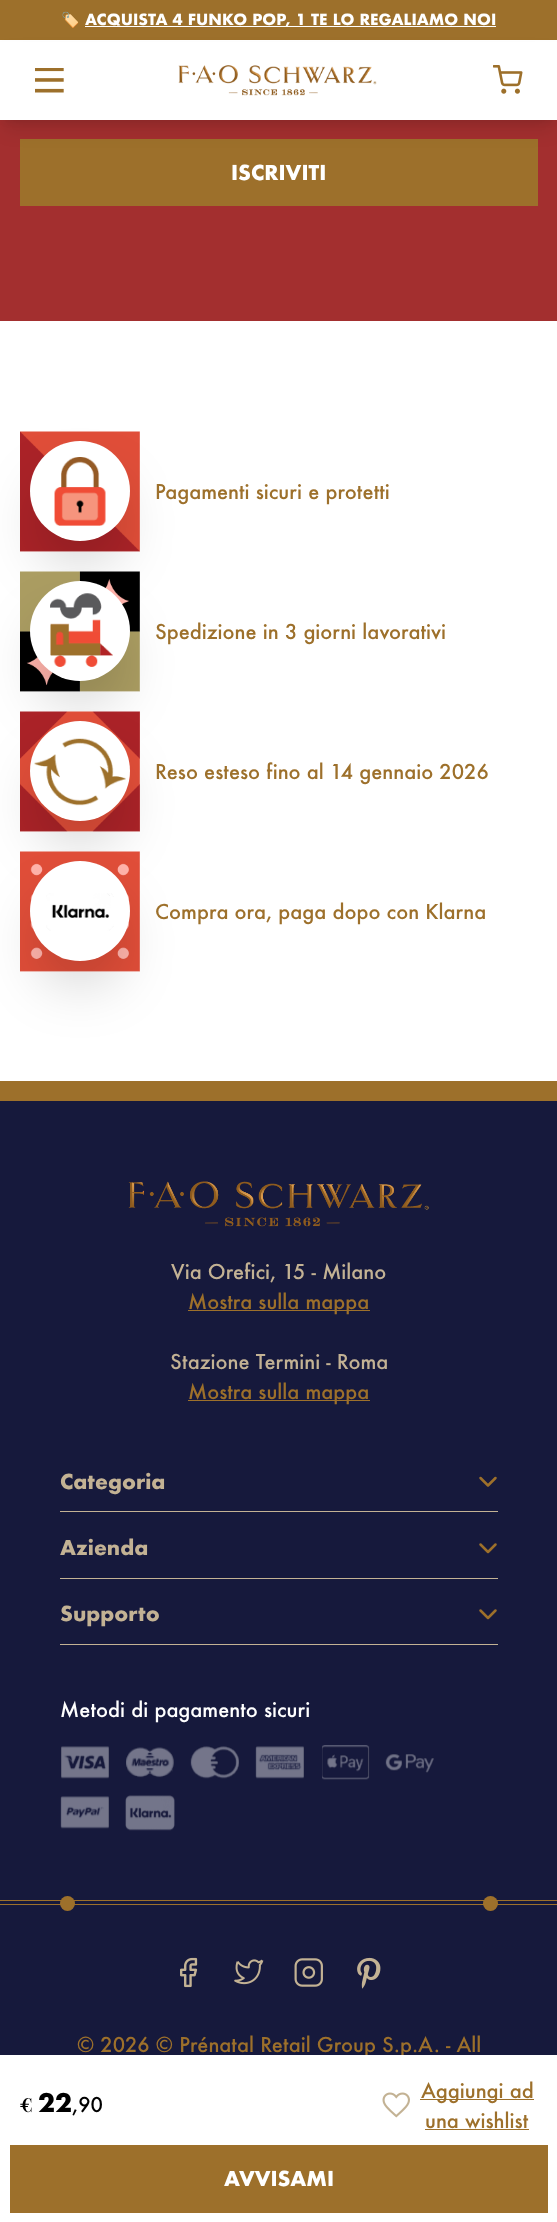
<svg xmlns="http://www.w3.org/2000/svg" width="557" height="2222">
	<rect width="100%" height="100%" fill="#FFFFFF" />
	<rect x="0" y="0" width="557" height="40" fill="#9D702B" />
	<text x="61" y="25" font-family="Noto Color Emoji" font-size="15" font-weight="700" fill="#FFFFFF">🏷️</text>
	<rect x="85" y="26" width="411" height="1" fill="#FFFFFF" />
	<text x="85" y="25" font-family="Futura" font-size="15" font-weight="700" fill="#FFFFFF">ACQUISTA 4 FUNKO POP, 1 TE LO REGALIAMO NOI</text>
	<rect x="0" y="120" width="557" height="201" fill="#A32F2F" />
	<rect x="5" y="50" width="548" height="70" fill="#000000" fill-opacity="0.1" filter="blur(4px)" />
	<rect x="20" y="139" width="518" height="67" fill="#9D702B" />
	<rect x="4" y="56" width="550" height="73" fill="#000000" fill-opacity="0.1" filter="blur(9.5px)" />
	<rect x="0" y="42" width="557" height="78" fill="#FFFFFF" />
	<image x="35" y="68" width="29" height="25" href="assets/img1.png" />
	<image x="178" y="65" width="199" height="31" href="assets/img2.png" />
	<image x="493" y="65" width="30" height="29" href="assets/img3.png" />
	<text x="231" y="180" font-family="Futura" font-size="20" font-weight="700" fill="#FFFFFF">ISCRIVITI</text>
	<image x="20" y="431" width="120" height="121" href="assets/img4.png" />
	<rect x="45" y="488" width="70" height="70" rx="35" fill="#000000" fill-opacity="0.25" filter="blur(31px)" />
	<circle cx="80" cy="491" r="50" fill="#FFFFFF" />
	<image x="54" y="457" width="52" height="69" href="assets/img5.png" />
	<text x="155" y="499" font-family="Futura" font-size="20" font-weight="500" fill="#9D702B">Pagamenti sicuri e protetti</text>
	<image x="20" y="571" width="120" height="121" href="assets/img6.png" />
	<rect x="45" y="628" width="70" height="70" rx="35" fill="#000000" fill-opacity="0.25" filter="blur(31px)" />
	<circle cx="80" cy="631" r="50" fill="#FFFFFF" />
	<image x="50" y="593" width="63" height="74" href="assets/img7.png" />
	<text x="155" y="639" font-family="Futura" font-size="20" font-weight="500" fill="#9D702B">Spedizione in 3 giorni lavorativi</text>
	<image x="20" y="711" width="120" height="121" href="assets/img8.png" />
	<rect x="45" y="768" width="70" height="70" rx="35" fill="#000000" fill-opacity="0.25" filter="blur(31px)" />
	<circle cx="80" cy="771" r="50" fill="#FFFFFF" />
	<image x="34" y="738" width="92" height="68" href="assets/img9.png" />
	<text x="155" y="779" font-family="Futura" font-size="20" font-weight="500" fill="#9D702B">Reso esteso fino al 14 gennaio 2026</text>
	<image x="20" y="851" width="120" height="121" href="assets/img10.png" />
	<rect x="45" y="908" width="70" height="70" rx="35" fill="#000000" fill-opacity="0.25" filter="blur(31px)" />
	<circle cx="80" cy="911" r="50" fill="#FFFFFF" />
	<image x="46" y="893" width="68" height="38" href="assets/img11.png" />
	<text x="155" y="919" font-family="Futura" font-size="20" font-weight="500" fill="#9D702B">Compra ora, paga dopo con Klarna</text>
	<rect x="0" y="1101" width="557" height="954" fill="#16193C" />
	<rect x="0" y="1081" width="557" height="20" fill="#9D702B" />
	<image x="128" y="1181" width="301" height="46" href="assets/img12.png" />
	<text x="171" y="1279" font-family="Futura" font-size="20" font-weight="500" fill="#C3B294">Via Orefici, 15 - Milano</text>
	<rect x="188" y="1310" width="182" height="1" fill="#9D702B" />
	<text x="188" y="1309" font-family="Futura" font-size="20" font-weight="500" fill="#9D702B">Mostra sulla mappa</text>
	<text x="170" y="1369" font-family="Futura" font-size="20" font-weight="500" fill="#C3B294">Stazione Termini - Roma</text>
	<rect x="188" y="1400" width="182" height="1" fill="#9D702B" />
	<text x="188" y="1399" font-family="Futura" font-size="20" font-weight="500" fill="#9D702B">Mostra sulla mappa</text>
	<rect x="60" y="1511" width="438" height="1" fill="#C3B294" />
	<text x="60" y="1489" font-family="Futura" font-size="20" font-weight="700" fill="#C3B294">Categoria</text>
	<path d="M480.5 1478L488 1485.5L495.5 1478" fill="none" stroke="#9D702B" stroke-width="2.5" stroke-linecap="round" stroke-linejoin="round" />
	<rect x="60" y="1578" width="438" height="1" fill="#C3B294" />
	<text x="60" y="1555" font-family="Futura" font-size="20" font-weight="700" fill="#C3B294">Azienda</text>
	<path d="M480.5 1544.5L488 1552L495.5 1544.5" fill="none" stroke="#9D702B" stroke-width="2.5" stroke-linecap="round" stroke-linejoin="round" />
	<rect x="60" y="1644" width="438" height="1" fill="#C3B294" />
	<text x="60" y="1621" font-family="Futura" font-size="20" font-weight="700" fill="#C3B294">Supporto</text>
	<path d="M480.5 1610.5L488 1618L495.5 1610.5" fill="none" stroke="#9D702B" stroke-width="2.5" stroke-linecap="round" stroke-linejoin="round" />
	<text x="60" y="1717" font-family="Futura" font-size="20" font-weight="500" fill="#FFFFFF">Metodi di pagamento sicuri</text>
	<image x="61" y="1746" width="48" height="33" href="assets/img13.png" />
	<image x="126" y="1747" width="48" height="31" href="assets/img14.png" />
	<image x="190" y="1746" width="49" height="33" href="assets/img15.png" />
	<image x="255" y="1746" width="49" height="33" href="assets/img16.png" />
	<image x="322" y="1745" width="48" height="35" href="assets/img17.png" />
	<image x="385" y="1754" width="49" height="19" href="assets/img18.png" />
	<image x="60" y="1796" width="49" height="33" href="assets/img19.png" />
	<image x="125" y="1795" width="50" height="36" href="assets/img20.png" />
	<rect x="0" y="1900" width="557" height="1" fill="#9D702B" />
	<rect x="0" y="1904" width="557" height="1" fill="#9D702B" />
	<circle cx="67.5" cy="1903.5" r="7.5" fill="#9D702B" />
	<circle cx="490.5" cy="1903.5" r="7.5" fill="#9D702B" />
	<image x="180" y="1957" width="18" height="31" href="assets/img21.png" />
	<image x="234" y="1959" width="30" height="26" href="assets/img22.png" />
	<image x="294" y="1958" width="29" height="29" href="assets/img23.png" />
	<image x="357" y="1957" width="24" height="32" href="assets/img24.png" />
	<text x="77" y="2052" font-family="Futura" font-size="20" font-weight="500" fill="#9D702B">© 2026 © Prénatal Retail Group S.p.A. - All</text>
	<rect x="364" y="2055" width="40" height="3" fill="#FFFFFF" />
	<text x="20" y="2112" font-family="'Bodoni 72'" font-size="20" font-weight="700" fill="#000000">€</text>
	<text x="38" y="2112" font-family="Futura" font-size="25" font-weight="700" fill="#000000">22</text>
	<text x="72" y="2112" font-family="Futura" font-size="20" font-weight="500" fill="#000000">,90</text>
	<image x="382" y="2092" width="28" height="26" href="assets/img25.png" />
	<rect x="420" y="2099" width="114" height="1" fill="#9D702B" />
	<g font-family="Futura" font-size="20" font-weight="500" fill="#9D702B">
		<text x="421" y="2098">Aggiungi ad</text>
		<text x="425" y="2128">una wishlist</text>
	</g>
	<rect x="425" y="2129" width="104" height="1" fill="#9D702B" />
	<rect x="10" y="2145" width="538" height="68" fill="#9D702B" />
	<text x="224" y="2186" font-family="Futura" font-size="20" font-weight="700" fill="#FFFFFF">AVVISAMI</text>
</svg>
